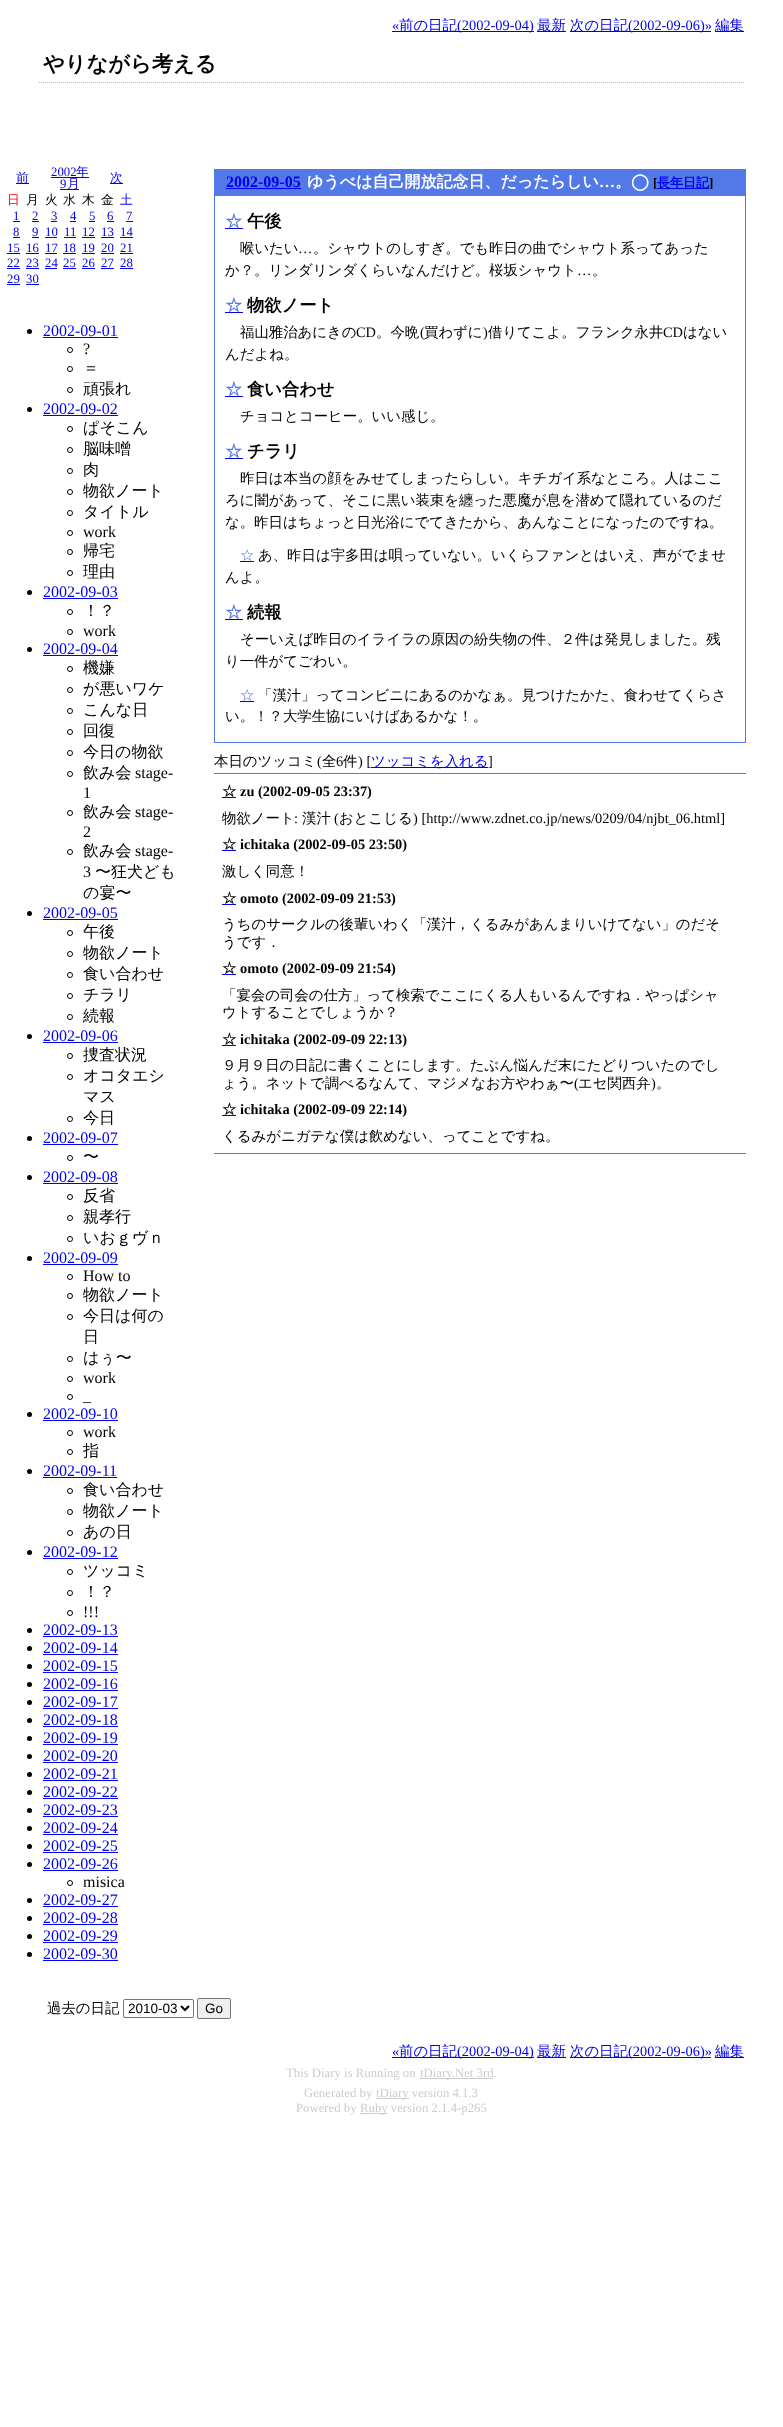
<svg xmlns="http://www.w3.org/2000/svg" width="783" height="2427">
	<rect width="100%" height="100%" fill="#FFFFFF" />
	<text x="392" y="30" font-family="Liberation Serif" font-size="14.4" fill="#0000EE">«</text>
	<rect x="392" y="31" width="142" height="1" fill="#0000EE" />
	<text x="399" y="30" font-family="WenQuanYi Zen Hei" font-size="14.4" font-weight="500" fill="#0000EE">前の日記</text>
	<text x="457" y="30" font-family="Liberation Serif" font-size="14.4" fill="#0000EE">(2002-09-04)</text>
	<rect x="537" y="31" width="29" height="1" fill="#0000EE" />
	<text x="537" y="30" font-family="WenQuanYi Zen Hei" font-size="14.4" font-weight="500" fill="#0000EE">最新</text>
	<rect x="570" y="31" width="141" height="1" fill="#0000EE" />
	<text x="570" y="30" font-family="WenQuanYi Zen Hei" font-size="14.4" font-weight="500" fill="#0000EE">次の日記</text>
	<text x="628" y="30" font-family="Liberation Serif" font-size="14.4" fill="#0000EE">(2002-09-06)»</text>
	<rect x="715" y="31" width="29" height="1" fill="#0000EE" />
	<text x="715" y="30" font-family="WenQuanYi Zen Hei" font-size="14.4" font-weight="500" fill="#0000EE">編集</text>
	<path d="M39 82.5H744" fill="none" stroke="#ADB2FF" stroke-dasharray="1 1" />
	<text x="43" y="71" font-family="WenQuanYi Zen Hei" font-size="21.25" font-weight="700" fill="#000000">やりながら考える</text>
	<rect x="16" y="183" width="13" height="1" fill="#0000EE" />
	<text x="16" y="182" font-family="WenQuanYi Zen Hei" font-size="12.75" font-weight="500" fill="#0000EE">前</text>
	<text x="51" y="176" font-family="Liberation Serif" font-size="12.75" fill="#0000EE">2002</text>
	<rect x="51" y="177" width="38" height="1" fill="#0000EE" />
	<text x="76" y="176" font-family="WenQuanYi Zen Hei" font-size="12.75" font-weight="500" fill="#0000EE">年</text>
	<text x="60" y="188" font-family="Liberation Serif" font-size="12.75" fill="#0000EE">9</text>
	<rect x="60" y="189" width="19" height="1" fill="#0000EE" />
	<text x="67" y="188" font-family="WenQuanYi Zen Hei" font-size="12.75" font-weight="500" fill="#0000EE">月</text>
	<rect x="110" y="183" width="13" height="1" fill="#0000EE" />
	<text x="110" y="182" font-family="WenQuanYi Zen Hei" font-size="12.75" font-weight="500" fill="#0000EE">次</text>
	<text x="7" y="204" font-family="WenQuanYi Zen Hei" font-size="12.75" font-weight="500" fill="#FF0000">日</text>
	<g font-family="WenQuanYi Zen Hei" font-size="12.75" font-weight="500" fill="#000000">
		<text x="26" y="204">月</text>
		<text x="45" y="204">火</text>
		<text x="63" y="204">水</text>
		<text x="82" y="204">木</text>
		<text x="101" y="204">金</text>
	</g>
	<text x="120" y="204" font-family="WenQuanYi Zen Hei" font-size="12.75" font-weight="500" fill="#0000FF">土</text>
	<text x="13" y="220" font-family="Liberation Serif" font-size="12.75" fill="#0000EE">1</text>
	<rect x="13" y="221" width="7" height="1" fill="#0000EE" />
	<text x="32" y="220" font-family="Liberation Serif" font-size="12.75" fill="#0000EE">2</text>
	<rect x="32" y="221" width="7" height="1" fill="#0000EE" />
	<text x="51" y="220" font-family="Liberation Serif" font-size="12.75" fill="#0000EE">3</text>
	<rect x="51" y="221" width="6" height="1" fill="#0000EE" />
	<text x="70" y="220" font-family="Liberation Serif" font-size="12.75" fill="#0000EE">4</text>
	<rect x="70" y="221" width="6" height="1" fill="#0000EE" />
	<text x="89" y="220" font-family="Liberation Serif" font-size="12.75" fill="#0000EE">5</text>
	<rect x="89" y="221" width="6" height="1" fill="#0000EE" />
	<text x="107" y="220" font-family="Liberation Serif" font-size="12.75" fill="#0000EE">6</text>
	<rect x="107" y="221" width="7" height="1" fill="#0000EE" />
	<text x="126" y="220" font-family="Liberation Serif" font-size="12.75" fill="#0000EE">7</text>
	<rect x="126" y="221" width="7" height="1" fill="#0000EE" />
	<text x="13" y="236" font-family="Liberation Serif" font-size="12.75" fill="#0000EE">8</text>
	<rect x="13" y="237" width="7" height="1" fill="#0000EE" />
	<text x="32" y="236" font-family="Liberation Serif" font-size="12.75" fill="#0000EE">9</text>
	<rect x="32" y="237" width="7" height="1" fill="#0000EE" />
	<text x="45" y="236" font-family="Liberation Serif" font-size="12.75" fill="#0000EE">10</text>
	<rect x="45" y="237" width="12" height="1" fill="#0000EE" />
	<text x="64" y="236" font-family="Liberation Serif" font-size="12.75" fill="#0000EE">11</text>
	<rect x="64" y="237" width="12" height="1" fill="#0000EE" />
	<text x="82" y="236" font-family="Liberation Serif" font-size="12.75" fill="#0000EE">12</text>
	<rect x="82" y="237" width="13" height="1" fill="#0000EE" />
	<text x="101" y="236" font-family="Liberation Serif" font-size="12.75" fill="#0000EE">13</text>
	<rect x="101" y="237" width="13" height="1" fill="#0000EE" />
	<text x="120" y="236" font-family="Liberation Serif" font-size="12.75" fill="#0000EE">14</text>
	<rect x="120" y="237" width="13" height="1" fill="#0000EE" />
	<text x="7" y="252" font-family="Liberation Serif" font-size="12.75" fill="#0000EE">15</text>
	<rect x="7" y="253" width="13" height="1" fill="#0000EE" />
	<text x="26" y="252" font-family="Liberation Serif" font-size="12.75" fill="#0000EE">16</text>
	<rect x="26" y="253" width="13" height="1" fill="#0000EE" />
	<text x="45" y="252" font-family="Liberation Serif" font-size="12.75" fill="#0000EE">17</text>
	<rect x="45" y="253" width="12" height="1" fill="#0000EE" />
	<text x="63" y="252" font-family="Liberation Serif" font-size="12.75" fill="#0000EE">18</text>
	<rect x="63" y="253" width="13" height="1" fill="#0000EE" />
	<text x="82" y="252" font-family="Liberation Serif" font-size="12.75" fill="#0000EE">19</text>
	<rect x="82" y="253" width="13" height="1" fill="#0000EE" />
	<text x="101" y="252" font-family="Liberation Serif" font-size="12.75" fill="#0000EE">20</text>
	<rect x="101" y="253" width="13" height="1" fill="#0000EE" />
	<text x="120" y="252" font-family="Liberation Serif" font-size="12.75" fill="#0000EE">21</text>
	<rect x="120" y="253" width="13" height="1" fill="#0000EE" />
	<text x="7" y="267" font-family="Liberation Serif" font-size="12.75" fill="#0000EE">22</text>
	<rect x="7" y="268" width="13" height="1" fill="#0000EE" />
	<text x="26" y="267" font-family="Liberation Serif" font-size="12.75" fill="#0000EE">23</text>
	<rect x="26" y="268" width="13" height="1" fill="#0000EE" />
	<text x="45" y="267" font-family="Liberation Serif" font-size="12.75" fill="#0000EE">24</text>
	<rect x="45" y="268" width="12" height="1" fill="#0000EE" />
	<text x="63" y="267" font-family="Liberation Serif" font-size="12.75" fill="#0000EE">25</text>
	<rect x="63" y="268" width="13" height="1" fill="#0000EE" />
	<text x="82" y="267" font-family="Liberation Serif" font-size="12.75" fill="#0000EE">26</text>
	<rect x="82" y="268" width="13" height="1" fill="#0000EE" />
	<text x="101" y="267" font-family="Liberation Serif" font-size="12.75" fill="#0000EE">27</text>
	<rect x="101" y="268" width="13" height="1" fill="#0000EE" />
	<text x="120" y="267" font-family="Liberation Serif" font-size="12.75" fill="#0000EE">28</text>
	<rect x="120" y="268" width="13" height="1" fill="#0000EE" />
	<text x="7" y="283" font-family="Liberation Serif" font-size="12.75" fill="#0000EE">29</text>
	<rect x="7" y="284" width="13" height="1" fill="#0000EE" />
	<text x="26" y="283" font-family="Liberation Serif" font-size="12.75" fill="#0000EE">30</text>
	<rect x="26" y="284" width="13" height="1" fill="#0000EE" />
	<circle cx="29.5" cy="331.5" r="2.5" fill="#000000" />
	<text x="43" y="336" font-family="Liberation Serif" font-size="16" fill="#0000EE">2002-09-01</text>
	<rect x="43" y="337" width="75" height="1" fill="#0000EE" />
	<circle cx="70" cy="350" r="2.5" fill="none" stroke="#000000" />
	<text x="83" y="354" font-family="Liberation Serif" font-size="16" fill="#000000">?</text>
	<circle cx="70" cy="369" r="2.5" fill="none" stroke="#000000" />
	<text x="83" y="373" font-family="WenQuanYi Zen Hei" font-size="16" font-weight="500" fill="#000000">＝</text>
	<circle cx="70" cy="390" r="2.5" fill="none" stroke="#000000" />
	<text x="83" y="394" font-family="WenQuanYi Zen Hei" font-size="16" font-weight="500" fill="#000000">頑張れ</text>
	<circle cx="29.5" cy="409.5" r="2.5" fill="#000000" />
	<text x="43" y="414" font-family="Liberation Serif" font-size="16" fill="#0000EE">2002-09-02</text>
	<rect x="43" y="415" width="75" height="1" fill="#0000EE" />
	<circle cx="70" cy="429" r="2.5" fill="none" stroke="#000000" />
	<text x="83" y="433" font-family="WenQuanYi Zen Hei" font-size="16" font-weight="500" fill="#000000">ぱそこん</text>
	<circle cx="70" cy="450" r="2.5" fill="none" stroke="#000000" />
	<text x="83" y="454" font-family="WenQuanYi Zen Hei" font-size="16" font-weight="500" fill="#000000">脳味噌</text>
	<circle cx="70" cy="471" r="2.5" fill="none" stroke="#000000" />
	<text x="83" y="475" font-family="WenQuanYi Zen Hei" font-size="16" font-weight="500" fill="#000000">肉</text>
	<circle cx="70" cy="492" r="2.5" fill="none" stroke="#000000" />
	<text x="83" y="496" font-family="WenQuanYi Zen Hei" font-size="16" font-weight="500" fill="#000000">物欲ノート</text>
	<circle cx="70" cy="513" r="2.5" fill="none" stroke="#000000" />
	<text x="83" y="517" font-family="WenQuanYi Zen Hei" font-size="16" font-weight="500" fill="#000000">タイトル</text>
	<circle cx="70" cy="533" r="2.5" fill="none" stroke="#000000" />
	<text x="83" y="537" font-family="Liberation Serif" font-size="16" fill="#000000">work</text>
	<circle cx="70" cy="552" r="2.5" fill="none" stroke="#000000" />
	<text x="83" y="556" font-family="WenQuanYi Zen Hei" font-size="16" font-weight="500" fill="#000000">帰宅</text>
	<circle cx="70" cy="573" r="2.5" fill="none" stroke="#000000" />
	<text x="83" y="577" font-family="WenQuanYi Zen Hei" font-size="16" font-weight="500" fill="#000000">理由</text>
	<circle cx="29.5" cy="592.5" r="2.5" fill="#000000" />
	<text x="43" y="597" font-family="Liberation Serif" font-size="16" fill="#0000EE">2002-09-03</text>
	<rect x="43" y="598" width="75" height="1" fill="#0000EE" />
	<circle cx="70" cy="612" r="2.5" fill="none" stroke="#000000" />
	<text x="83" y="616" font-family="WenQuanYi Zen Hei" font-size="16" font-weight="500" fill="#000000">！？</text>
	<circle cx="70" cy="632" r="2.5" fill="none" stroke="#000000" />
	<text x="83" y="636" font-family="Liberation Serif" font-size="16" fill="#000000">work</text>
	<circle cx="29.5" cy="649.5" r="2.5" fill="#000000" />
	<text x="43" y="654" font-family="Liberation Serif" font-size="16" fill="#0000EE">2002-09-04</text>
	<rect x="43" y="655" width="75" height="1" fill="#0000EE" />
	<circle cx="70" cy="669" r="2.5" fill="none" stroke="#000000" />
	<text x="83" y="673" font-family="WenQuanYi Zen Hei" font-size="16" font-weight="500" fill="#000000">機嫌</text>
	<circle cx="70" cy="690" r="2.5" fill="none" stroke="#000000" />
	<text x="83" y="694" font-family="WenQuanYi Zen Hei" font-size="16" font-weight="500" fill="#000000">が悪いワケ</text>
	<circle cx="70" cy="711" r="2.5" fill="none" stroke="#000000" />
	<text x="83" y="715" font-family="WenQuanYi Zen Hei" font-size="16" font-weight="500" fill="#000000">こんな日</text>
	<circle cx="70" cy="732" r="2.5" fill="none" stroke="#000000" />
	<text x="83" y="736" font-family="WenQuanYi Zen Hei" font-size="16" font-weight="500" fill="#000000">回復</text>
	<circle cx="70" cy="753" r="2.5" fill="none" stroke="#000000" />
	<text x="83" y="757" font-family="WenQuanYi Zen Hei" font-size="16" font-weight="500" fill="#000000">今日の物欲</text>
	<circle cx="70" cy="774" r="2.5" fill="none" stroke="#000000" />
	<text x="83" y="778" font-family="WenQuanYi Zen Hei" font-size="16" font-weight="500" fill="#000000">飲み会</text>
	<g font-family="Liberation Serif" font-size="16" fill="#000000">
		<text x="135" y="778">stage-</text>
		<text x="83" y="798">1</text>
	</g>
	<circle cx="70" cy="813" r="2.5" fill="none" stroke="#000000" />
	<text x="83" y="817" font-family="WenQuanYi Zen Hei" font-size="16" font-weight="500" fill="#000000">飲み会</text>
	<g font-family="Liberation Serif" font-size="16" fill="#000000">
		<text x="135" y="817">stage-</text>
		<text x="83" y="837">2</text>
	</g>
	<circle cx="70" cy="852" r="2.5" fill="none" stroke="#000000" />
	<text x="83" y="856" font-family="WenQuanYi Zen Hei" font-size="16" font-weight="500" fill="#000000">飲み会</text>
	<g font-family="Liberation Serif" font-size="16" fill="#000000">
		<text x="135" y="856">stage-</text>
		<text x="83" y="877">3</text>
	</g>
	<g font-family="WenQuanYi Zen Hei" font-size="16" font-weight="500" fill="#000000">
		<text x="95" y="877">〜狂犬ども</text>
		<text x="83" y="898">の宴〜</text>
	</g>
	<circle cx="29.5" cy="913.5" r="2.5" fill="#000000" />
	<text x="43" y="918" font-family="Liberation Serif" font-size="16" fill="#0000EE">2002-09-05</text>
	<rect x="43" y="919" width="75" height="1" fill="#0000EE" />
	<circle cx="70" cy="933" r="2.5" fill="none" stroke="#000000" />
	<text x="83" y="937" font-family="WenQuanYi Zen Hei" font-size="16" font-weight="500" fill="#000000">午後</text>
	<circle cx="70" cy="954" r="2.5" fill="none" stroke="#000000" />
	<text x="83" y="958" font-family="WenQuanYi Zen Hei" font-size="16" font-weight="500" fill="#000000">物欲ノート</text>
	<circle cx="70" cy="975" r="2.5" fill="none" stroke="#000000" />
	<text x="83" y="979" font-family="WenQuanYi Zen Hei" font-size="16" font-weight="500" fill="#000000">食い合わせ</text>
	<circle cx="70" cy="996" r="2.5" fill="none" stroke="#000000" />
	<text x="83" y="1000" font-family="WenQuanYi Zen Hei" font-size="16" font-weight="500" fill="#000000">チラリ</text>
	<circle cx="70" cy="1017" r="2.5" fill="none" stroke="#000000" />
	<text x="83" y="1021" font-family="WenQuanYi Zen Hei" font-size="16" font-weight="500" fill="#000000">続報</text>
	<circle cx="29.5" cy="1036.5" r="2.5" fill="#000000" />
	<text x="43" y="1041" font-family="Liberation Serif" font-size="16" fill="#0000EE">2002-09-06</text>
	<rect x="43" y="1042" width="75" height="1" fill="#0000EE" />
	<circle cx="70" cy="1056" r="2.5" fill="none" stroke="#000000" />
	<text x="83" y="1060" font-family="WenQuanYi Zen Hei" font-size="16" font-weight="500" fill="#000000">捜査状況</text>
	<circle cx="70" cy="1077" r="2.5" fill="none" stroke="#000000" />
	<g font-family="WenQuanYi Zen Hei" font-size="16" font-weight="500" fill="#000000">
		<text x="83" y="1081">オコタエシ</text>
		<text x="83" y="1102">マス</text>
	</g>
	<circle cx="70" cy="1119" r="2.5" fill="none" stroke="#000000" />
	<text x="83" y="1123" font-family="WenQuanYi Zen Hei" font-size="16" font-weight="500" fill="#000000">今日</text>
	<circle cx="29.5" cy="1138.5" r="2.5" fill="#000000" />
	<text x="43" y="1143" font-family="Liberation Serif" font-size="16" fill="#0000EE">2002-09-07</text>
	<rect x="43" y="1144" width="75" height="1" fill="#0000EE" />
	<circle cx="70" cy="1158" r="2.5" fill="none" stroke="#000000" />
	<text x="83" y="1162" font-family="WenQuanYi Zen Hei" font-size="16" font-weight="500" fill="#000000">〜</text>
	<circle cx="29.5" cy="1177.5" r="2.5" fill="#000000" />
	<text x="43" y="1182" font-family="Liberation Serif" font-size="16" fill="#0000EE">2002-09-08</text>
	<rect x="43" y="1183" width="75" height="1" fill="#0000EE" />
	<circle cx="70" cy="1197" r="2.5" fill="none" stroke="#000000" />
	<text x="83" y="1201" font-family="WenQuanYi Zen Hei" font-size="16" font-weight="500" fill="#000000">反省</text>
	<circle cx="70" cy="1218" r="2.5" fill="none" stroke="#000000" />
	<text x="83" y="1222" font-family="WenQuanYi Zen Hei" font-size="16" font-weight="500" fill="#000000">親孝行</text>
	<circle cx="70" cy="1239" r="2.5" fill="none" stroke="#000000" />
	<text x="83" y="1243" font-family="WenQuanYi Zen Hei" font-size="16" font-weight="500" fill="#000000">いおｇヴｎ</text>
	<circle cx="29.5" cy="1258.5" r="2.5" fill="#000000" />
	<text x="43" y="1263" font-family="Liberation Serif" font-size="16" fill="#0000EE">2002-09-09</text>
	<rect x="43" y="1264" width="75" height="1" fill="#0000EE" />
	<circle cx="70" cy="1277" r="2.5" fill="none" stroke="#000000" />
	<text x="83" y="1281" font-family="Liberation Serif" font-size="16" fill="#000000">How to</text>
	<circle cx="70" cy="1296" r="2.5" fill="none" stroke="#000000" />
	<text x="83" y="1300" font-family="WenQuanYi Zen Hei" font-size="16" font-weight="500" fill="#000000">物欲ノート</text>
	<circle cx="70" cy="1317" r="2.5" fill="none" stroke="#000000" />
	<g font-family="WenQuanYi Zen Hei" font-size="16" font-weight="500" fill="#000000">
		<text x="83" y="1321">今日は何の</text>
		<text x="83" y="1342">日</text>
	</g>
	<circle cx="70" cy="1359" r="2.5" fill="none" stroke="#000000" />
	<text x="83" y="1363" font-family="WenQuanYi Zen Hei" font-size="16" font-weight="500" fill="#000000">はぅ〜</text>
	<circle cx="70" cy="1379" r="2.5" fill="none" stroke="#000000" />
	<text x="83" y="1383" font-family="Liberation Serif" font-size="16" fill="#000000">work</text>
	<circle cx="70" cy="1397" r="2.5" fill="none" stroke="#000000" />
	<text x="83" y="1401" font-family="Liberation Serif" font-size="16" fill="#000000">_</text>
	<circle cx="29.5" cy="1414.5" r="2.5" fill="#000000" />
	<text x="43" y="1419" font-family="Liberation Serif" font-size="16" fill="#0000EE">2002-09-10</text>
	<rect x="43" y="1420" width="75" height="1" fill="#0000EE" />
	<circle cx="70" cy="1433" r="2.5" fill="none" stroke="#000000" />
	<text x="83" y="1437" font-family="Liberation Serif" font-size="16" fill="#000000">work</text>
	<circle cx="70" cy="1452" r="2.5" fill="none" stroke="#000000" />
	<text x="83" y="1456" font-family="WenQuanYi Zen Hei" font-size="16" font-weight="500" fill="#000000">指</text>
	<circle cx="29.5" cy="1471.5" r="2.5" fill="#000000" />
	<text x="43" y="1476" font-family="Liberation Serif" font-size="16" fill="#0000EE">2002-09-11</text>
	<rect x="43" y="1477" width="74" height="1" fill="#0000EE" />
	<circle cx="70" cy="1491" r="2.5" fill="none" stroke="#000000" />
	<text x="83" y="1495" font-family="WenQuanYi Zen Hei" font-size="16" font-weight="500" fill="#000000">食い合わせ</text>
	<circle cx="70" cy="1512" r="2.5" fill="none" stroke="#000000" />
	<text x="83" y="1516" font-family="WenQuanYi Zen Hei" font-size="16" font-weight="500" fill="#000000">物欲ノート</text>
	<circle cx="70" cy="1533" r="2.5" fill="none" stroke="#000000" />
	<text x="83" y="1537" font-family="WenQuanYi Zen Hei" font-size="16" font-weight="500" fill="#000000">あの日</text>
	<circle cx="29.5" cy="1552.5" r="2.5" fill="#000000" />
	<text x="43" y="1557" font-family="Liberation Serif" font-size="16" fill="#0000EE">2002-09-12</text>
	<rect x="43" y="1558" width="75" height="1" fill="#0000EE" />
	<circle cx="70" cy="1572" r="2.5" fill="none" stroke="#000000" />
	<text x="83" y="1576" font-family="WenQuanYi Zen Hei" font-size="16" font-weight="500" fill="#000000">ツッコミ</text>
	<circle cx="70" cy="1593" r="2.5" fill="none" stroke="#000000" />
	<text x="83" y="1597" font-family="WenQuanYi Zen Hei" font-size="16" font-weight="500" fill="#000000">！？</text>
	<circle cx="70" cy="1613" r="2.5" fill="none" stroke="#000000" />
	<text x="83" y="1617" font-family="Liberation Serif" font-size="16" fill="#000000">!!!</text>
	<circle cx="29.5" cy="1630.5" r="2.5" fill="#000000" />
	<text x="43" y="1635" font-family="Liberation Serif" font-size="16" fill="#0000EE">2002-09-13</text>
	<rect x="43" y="1636" width="75" height="1" fill="#0000EE" />
	<circle cx="29.5" cy="1648.5" r="2.5" fill="#000000" />
	<text x="43" y="1653" font-family="Liberation Serif" font-size="16" fill="#0000EE">2002-09-14</text>
	<rect x="43" y="1654" width="75" height="1" fill="#0000EE" />
	<circle cx="29.5" cy="1666.5" r="2.5" fill="#000000" />
	<text x="43" y="1671" font-family="Liberation Serif" font-size="16" fill="#0000EE">2002-09-15</text>
	<rect x="43" y="1672" width="75" height="1" fill="#0000EE" />
	<circle cx="29.5" cy="1684.5" r="2.5" fill="#000000" />
	<text x="43" y="1689" font-family="Liberation Serif" font-size="16" fill="#0000EE">2002-09-16</text>
	<rect x="43" y="1690" width="75" height="1" fill="#0000EE" />
	<circle cx="29.5" cy="1702.5" r="2.5" fill="#000000" />
	<text x="43" y="1707" font-family="Liberation Serif" font-size="16" fill="#0000EE">2002-09-17</text>
	<rect x="43" y="1708" width="75" height="1" fill="#0000EE" />
	<circle cx="29.5" cy="1720.5" r="2.5" fill="#000000" />
	<text x="43" y="1725" font-family="Liberation Serif" font-size="16" fill="#0000EE">2002-09-18</text>
	<rect x="43" y="1726" width="75" height="1" fill="#0000EE" />
	<circle cx="29.5" cy="1738.5" r="2.5" fill="#000000" />
	<text x="43" y="1743" font-family="Liberation Serif" font-size="16" fill="#0000EE">2002-09-19</text>
	<rect x="43" y="1744" width="75" height="1" fill="#0000EE" />
	<circle cx="29.5" cy="1756.5" r="2.5" fill="#000000" />
	<text x="43" y="1761" font-family="Liberation Serif" font-size="16" fill="#0000EE">2002-09-20</text>
	<rect x="43" y="1762" width="75" height="1" fill="#0000EE" />
	<circle cx="29.5" cy="1774.5" r="2.5" fill="#000000" />
	<text x="43" y="1779" font-family="Liberation Serif" font-size="16" fill="#0000EE">2002-09-21</text>
	<rect x="43" y="1780" width="75" height="1" fill="#0000EE" />
	<circle cx="29.5" cy="1792.5" r="2.5" fill="#000000" />
	<text x="43" y="1797" font-family="Liberation Serif" font-size="16" fill="#0000EE">2002-09-22</text>
	<rect x="43" y="1798" width="75" height="1" fill="#0000EE" />
	<circle cx="29.5" cy="1810.5" r="2.5" fill="#000000" />
	<text x="43" y="1815" font-family="Liberation Serif" font-size="16" fill="#0000EE">2002-09-23</text>
	<rect x="43" y="1816" width="75" height="1" fill="#0000EE" />
	<circle cx="29.5" cy="1828.5" r="2.5" fill="#000000" />
	<text x="43" y="1833" font-family="Liberation Serif" font-size="16" fill="#0000EE">2002-09-24</text>
	<rect x="43" y="1834" width="75" height="1" fill="#0000EE" />
	<circle cx="29.5" cy="1846.5" r="2.5" fill="#000000" />
	<text x="43" y="1851" font-family="Liberation Serif" font-size="16" fill="#0000EE">2002-09-25</text>
	<rect x="43" y="1852" width="75" height="1" fill="#0000EE" />
	<circle cx="29.5" cy="1864.5" r="2.5" fill="#000000" />
	<text x="43" y="1869" font-family="Liberation Serif" font-size="16" fill="#0000EE">2002-09-26</text>
	<rect x="43" y="1870" width="75" height="1" fill="#0000EE" />
	<circle cx="70" cy="1883" r="2.5" fill="none" stroke="#000000" />
	<text x="83" y="1887" font-family="Liberation Serif" font-size="16" fill="#000000">misica</text>
	<circle cx="29.5" cy="1900.5" r="2.5" fill="#000000" />
	<text x="43" y="1905" font-family="Liberation Serif" font-size="16" fill="#0000EE">2002-09-27</text>
	<rect x="43" y="1906" width="75" height="1" fill="#0000EE" />
	<circle cx="29.5" cy="1918.5" r="2.5" fill="#000000" />
	<text x="43" y="1923" font-family="Liberation Serif" font-size="16" fill="#0000EE">2002-09-28</text>
	<rect x="43" y="1924" width="75" height="1" fill="#0000EE" />
	<circle cx="29.5" cy="1936.5" r="2.5" fill="#000000" />
	<text x="43" y="1941" font-family="Liberation Serif" font-size="16" fill="#0000EE">2002-09-29</text>
	<rect x="43" y="1942" width="75" height="1" fill="#0000EE" />
	<circle cx="29.5" cy="1954.5" r="2.5" fill="#000000" />
	<text x="43" y="1959" font-family="Liberation Serif" font-size="16" fill="#0000EE">2002-09-30</text>
	<rect x="43" y="1960" width="75" height="1" fill="#0000EE" />
	<rect x="214" y="169" width="532" height="26" fill="#5279E7" />
	<text x="226" y="187" font-family="Liberation Serif" font-size="16" font-weight="700" fill="#0000EE">2002-09-05</text>
	<rect x="226" y="188" width="75" height="1" fill="#0000EE" />
	<text x="307" y="187" font-family="WenQuanYi Zen Hei" font-size="16" font-weight="700" fill="#FFFFFF">ゆうべは自己開放記念日、だったらしい</text>
	<text x="599" y="187" font-family="Liberation Serif" font-size="16" font-weight="700" fill="#FFFFFF">…</text>
	<text x="615" y="187" font-family="WenQuanYi Zen Hei" font-size="16" font-weight="700" fill="#FFFFFF">。</text>
	<text x="631" y="187" font-family="DejaVu Sans" font-size="16" font-weight="700" fill="#FFFFFF">◯</text>
	<text x="653" y="187" font-family="Liberation Serif" font-size="13" font-weight="700" fill="#000000">[</text>
	<rect x="657" y="188" width="52" height="1" fill="#0000EE" />
	<text x="657" y="187" font-family="WenQuanYi Zen Hei" font-size="13" font-weight="700" fill="#0000EE">長年日記</text>
	<text x="709" y="187" font-family="Liberation Serif" font-size="13" font-weight="700" fill="#000000">]</text>
	<rect x="214.5" y="195.5" width="531" height="547" fill="none" stroke="#5279E7" />
	<rect x="225" y="228" width="18" height="1" fill="#0000EE" />
	<text x="225" y="227" font-family="WenQuanYi Zen Hei" font-size="17.25" font-weight="700" fill="#5279E7">☆</text>
	<text x="247" y="227" font-family="WenQuanYi Zen Hei" font-size="17.25" font-weight="700" fill="#000000">午後</text>
	<text x="240" y="253" font-family="WenQuanYi Zen Hei" font-size="14.4" font-weight="500" fill="#000000">喉いたい</text>
	<text x="298" y="253" font-family="Liberation Serif" font-size="14.4" fill="#000000">…</text>
	<g font-family="WenQuanYi Zen Hei" font-size="14.4" font-weight="500" fill="#000000">
		<text x="313" y="253">。シャウトのしすぎ。でも昨日の曲でシャウト系ってあった</text>
		<text x="225" y="275">か？。リンダリンダくらいなんだけど。桜坂シャウト</text>
	</g>
	<text x="577" y="275" font-family="Liberation Serif" font-size="14.4" fill="#000000">…</text>
	<text x="592" y="275" font-family="WenQuanYi Zen Hei" font-size="14.4" font-weight="500" fill="#000000">。</text>
	<rect x="225" y="312" width="18" height="1" fill="#0000EE" />
	<text x="225" y="311" font-family="WenQuanYi Zen Hei" font-size="17.25" font-weight="700" fill="#5279E7">☆</text>
	<text x="247" y="311" font-family="WenQuanYi Zen Hei" font-size="17.25" font-weight="700" fill="#000000">物欲ノート</text>
	<text x="240" y="337" font-family="WenQuanYi Zen Hei" font-size="14.4" font-weight="500" fill="#000000">福山雅治あにきの</text>
	<text x="356" y="337" font-family="Liberation Serif" font-size="14.4" fill="#000000">CD</text>
	<text x="376" y="337" font-family="WenQuanYi Zen Hei" font-size="14.4" font-weight="500" fill="#000000">。今晩</text>
	<text x="420" y="337" font-family="Liberation Serif" font-size="14.4" fill="#000000">(</text>
	<text x="424" y="337" font-family="WenQuanYi Zen Hei" font-size="14.4" font-weight="500" fill="#000000">買わずに</text>
	<text x="483" y="337" font-family="Liberation Serif" font-size="14.4" fill="#000000">)</text>
	<text x="488" y="337" font-family="WenQuanYi Zen Hei" font-size="14.4" font-weight="500" fill="#000000">借りてこよ。フランク永井</text>
	<text x="663" y="337" font-family="Liberation Serif" font-size="14.4" fill="#000000">CD</text>
	<g font-family="WenQuanYi Zen Hei" font-size="14.4" font-weight="500" fill="#000000">
		<text x="683" y="337">はない</text>
		<text x="225" y="359">んだよね。</text>
	</g>
	<rect x="225" y="396" width="18" height="1" fill="#0000EE" />
	<text x="225" y="395" font-family="WenQuanYi Zen Hei" font-size="17.25" font-weight="700" fill="#5279E7">☆</text>
	<text x="247" y="395" font-family="WenQuanYi Zen Hei" font-size="17.25" font-weight="700" fill="#000000">食い合わせ</text>
	<text x="240" y="421" font-family="WenQuanYi Zen Hei" font-size="14.4" font-weight="500" fill="#000000">チョコとコーヒー。いい感じ。</text>
	<rect x="225" y="458" width="18" height="1" fill="#0000EE" />
	<text x="225" y="457" font-family="WenQuanYi Zen Hei" font-size="17.25" font-weight="700" fill="#5279E7">☆</text>
	<text x="247" y="457" font-family="WenQuanYi Zen Hei" font-size="17.25" font-weight="700" fill="#000000">チラリ</text>
	<g font-family="WenQuanYi Zen Hei" font-size="14.4" font-weight="500" fill="#000000">
		<text x="240" y="483">昨日は本当の顔をみせてしまったらしい。キチガイ系なところ。人はここ</text>
		<text x="225" y="505">ろに闇があって、そこに黒い装束を纏った悪魔が息を潜めて隠れているのだ</text>
		<text x="225" y="527">な。昨日はちょっと日光浴にでてきたから、あんなことになったのですね。</text>
	</g>
	<text x="240" y="560" font-family="WenQuanYi Zen Hei" font-size="14.4" font-weight="500" fill="#5279E7">☆</text>
	<rect x="240" y="561" width="14" height="1" fill="#0000EE" />
	<g font-family="WenQuanYi Zen Hei" font-size="14.4" font-weight="500" fill="#000000">
		<text x="258" y="560">あ、昨日は宇多田は唄っていない。いくらファンとはいえ、声がでませ</text>
		<text x="225" y="582">んよ。</text>
	</g>
	<rect x="225" y="619" width="18" height="1" fill="#0000EE" />
	<text x="225" y="618" font-family="WenQuanYi Zen Hei" font-size="17.25" font-weight="700" fill="#5279E7">☆</text>
	<text x="247" y="618" font-family="WenQuanYi Zen Hei" font-size="17.25" font-weight="700" fill="#000000">続報</text>
	<g font-family="WenQuanYi Zen Hei" font-size="14.4" font-weight="500" fill="#000000">
		<text x="240" y="644">そーいえば昨日のイライラの原因の紛失物の件、２件は発見しました。残</text>
		<text x="225" y="666">り一件がてごわい。</text>
	</g>
	<text x="240" y="700" font-family="WenQuanYi Zen Hei" font-size="14.4" font-weight="500" fill="#5279E7">☆</text>
	<rect x="240" y="701" width="14" height="1" fill="#0000EE" />
	<g font-family="WenQuanYi Zen Hei" font-size="14.4" font-weight="500" fill="#000000">
		<text x="258" y="700">「漢汁」ってコンビニにあるのかなぁ。見つけたかた、食わせてくらさ</text>
		<text x="225" y="721">い。！？大学生協にいけばあるかな！。</text>
	</g>
	<rect x="214" y="773" width="532" height="1" fill="#5279E7" />
	<text x="214" y="766" font-family="WenQuanYi Zen Hei" font-size="14.4" font-weight="500" fill="#000000">本日のツッコミ</text>
	<text x="317" y="766" font-family="Liberation Serif" font-size="14.4" fill="#000000">(</text>
	<text x="322" y="766" font-family="WenQuanYi Zen Hei" font-size="14.4" font-weight="500" fill="#000000">全</text>
	<text x="336" y="766" font-family="Liberation Serif" font-size="14.4" fill="#000000">6</text>
	<text x="343" y="766" font-family="WenQuanYi Zen Hei" font-size="14.4" font-weight="500" fill="#000000">件</text>
	<text x="358" y="766" font-family="Liberation Serif" font-size="14.4" fill="#000000">) [</text>
	<rect x="371" y="767" width="117" height="1" fill="#0000EE" />
	<text x="371" y="766" font-family="WenQuanYi Zen Hei" font-size="14.4" font-weight="500" fill="#0000EE">ツッコミを入れる</text>
	<text x="488" y="766" font-family="Liberation Serif" font-size="14.4" fill="#000000">]</text>
	<text x="222" y="796" font-family="WenQuanYi Zen Hei" font-size="14.4" font-weight="700" fill="#000000">☆</text>
	<rect x="222" y="797" width="14" height="1" fill="#0000EE" />
	<text x="240" y="796" font-family="Liberation Serif" font-size="14.4" font-weight="700" fill="#000000">zu (2002-09-05 23:37)</text>
	<text x="222" y="823" font-family="WenQuanYi Zen Hei" font-size="14.4" font-weight="500" fill="#000000">物欲ノート</text>
	<text x="294" y="823" font-family="Liberation Serif" font-size="14.4" fill="#000000">:</text>
	<text x="302" y="823" font-family="WenQuanYi Zen Hei" font-size="14.4" font-weight="500" fill="#000000">漢汁</text>
	<text x="334" y="823" font-family="Liberation Serif" font-size="14.4" fill="#000000">(</text>
	<text x="339" y="823" font-family="WenQuanYi Zen Hei" font-size="14.4" font-weight="500" fill="#000000">おとこじる</text>
	<text x="413" y="823" font-family="Liberation Serif" font-size="14.4" fill="#000000">) [http://www.zdnet.co.jp/news/0209/04/njbt_06.html]</text>
	<text x="222" y="849" font-family="WenQuanYi Zen Hei" font-size="14.4" font-weight="700" fill="#000000">☆</text>
	<rect x="222" y="850" width="14" height="1" fill="#0000EE" />
	<text x="240" y="849" font-family="Liberation Serif" font-size="14.4" font-weight="700" fill="#000000">ichitaka (2002-09-05 23:50)</text>
	<text x="222" y="876" font-family="WenQuanYi Zen Hei" font-size="14.4" font-weight="500" fill="#000000">激しく同意！</text>
	<text x="222" y="903" font-family="WenQuanYi Zen Hei" font-size="14.4" font-weight="700" fill="#000000">☆</text>
	<rect x="222" y="904" width="14" height="1" fill="#0000EE" />
	<text x="240" y="903" font-family="Liberation Serif" font-size="14.4" font-weight="700" fill="#000000">omoto (2002-09-09 21:53)</text>
	<g font-family="WenQuanYi Zen Hei" font-size="14.4" font-weight="500" fill="#000000">
		<text x="222" y="929">うちのサークルの後輩いわく「漢汁，くるみがあんまりいけてない」のだそ</text>
		<text x="222" y="947">うです．</text>
	</g>
	<text x="222" y="973" font-family="WenQuanYi Zen Hei" font-size="14.4" font-weight="700" fill="#000000">☆</text>
	<rect x="222" y="974" width="14" height="1" fill="#0000EE" />
	<text x="240" y="973" font-family="Liberation Serif" font-size="14.4" font-weight="700" fill="#000000">omoto (2002-09-09 21:54)</text>
	<g font-family="WenQuanYi Zen Hei" font-size="14.4" font-weight="500" fill="#000000">
		<text x="222" y="1000">「宴会の司会の仕方」って検索でここにくる人もいるんですね．やっぱシャ</text>
		<text x="222" y="1017">ウトすることでしょうか？</text>
	</g>
	<text x="222" y="1044" font-family="WenQuanYi Zen Hei" font-size="14.4" font-weight="700" fill="#000000">☆</text>
	<rect x="222" y="1045" width="14" height="1" fill="#0000EE" />
	<text x="240" y="1044" font-family="Liberation Serif" font-size="14.4" font-weight="700" fill="#000000">ichitaka (2002-09-09 22:13)</text>
	<g font-family="WenQuanYi Zen Hei" font-size="14.4" font-weight="500" fill="#000000">
		<text x="222" y="1070">９月９日の日記に書くことにします。たぶん悩んだ末にたどりついたのでし</text>
		<text x="222" y="1088">ょう。ネットで調べるなんて、マジメなお方やわぁ〜</text>
	</g>
	<text x="574" y="1088" font-family="Liberation Serif" font-size="14.4" fill="#000000">(</text>
	<text x="578" y="1088" font-family="WenQuanYi Zen Hei" font-size="14.4" font-weight="500" fill="#000000">エセ関西弁</text>
	<text x="651" y="1088" font-family="Liberation Serif" font-size="14.4" fill="#000000">)</text>
	<text x="656" y="1088" font-family="WenQuanYi Zen Hei" font-size="14.4" font-weight="500" fill="#000000">。</text>
	<text x="222" y="1114" font-family="WenQuanYi Zen Hei" font-size="14.4" font-weight="700" fill="#000000">☆</text>
	<rect x="222" y="1115" width="14" height="1" fill="#0000EE" />
	<text x="240" y="1114" font-family="Liberation Serif" font-size="14.4" font-weight="700" fill="#000000">ichitaka (2002-09-09 22:14)</text>
	<text x="222" y="1141" font-family="WenQuanYi Zen Hei" font-size="14.4" font-weight="500" fill="#000000">くるみがニガテな僕は飲めない、ってことですね。</text>
	<rect x="214" y="1153" width="532" height="1" fill="#5279E7" />
	<text x="47" y="2013" font-family="WenQuanYi Zen Hei" font-size="14.4" font-weight="500" fill="#000000">過去の日記</text>
	<rect x="123.5" y="1999.5" width="70" height="18" rx="1.5" fill="none" stroke="#767676" />
	<path d="M181 2006L185 2010L189 2006" fill="none" stroke="#000000" stroke-width="2" />
	<text x="128" y="2013" font-family="Liberation Sans" font-size="13.5" fill="#000000">2010-03</text>
	<rect x="197.5" y="1998.5" width="33" height="20" rx="1.5" fill="#EFEFEF" stroke="#767676" />
	<text x="205" y="2013" font-family="Liberation Sans" font-size="13.5" fill="#000000">Go</text>
	<text x="392" y="2056" font-family="Liberation Serif" font-size="14.4" fill="#0000EE">«</text>
	<rect x="392" y="2057" width="142" height="1" fill="#0000EE" />
	<text x="399" y="2056" font-family="WenQuanYi Zen Hei" font-size="14.4" font-weight="500" fill="#0000EE">前の日記</text>
	<text x="457" y="2056" font-family="Liberation Serif" font-size="14.4" fill="#0000EE">(2002-09-04)</text>
	<rect x="537" y="2057" width="29" height="1" fill="#0000EE" />
	<text x="537" y="2056" font-family="WenQuanYi Zen Hei" font-size="14.4" font-weight="500" fill="#0000EE">最新</text>
	<rect x="570" y="2057" width="141" height="1" fill="#0000EE" />
	<text x="570" y="2056" font-family="WenQuanYi Zen Hei" font-size="14.4" font-weight="500" fill="#0000EE">次の日記</text>
	<text x="628" y="2056" font-family="Liberation Serif" font-size="14.4" fill="#0000EE">(2002-09-06)»</text>
	<rect x="715" y="2057" width="29" height="1" fill="#0000EE" />
	<text x="715" y="2056" font-family="WenQuanYi Zen Hei" font-size="14.4" font-weight="500" fill="#0000EE">編集</text>
	<text x="286" y="2077" font-family="Liberation Serif" font-size="12.75" fill="#CCCCCC">This Diary is Running on</text>
	<rect x="420" y="2078" width="73" height="1" fill="#CCCCCC" />
	<g font-family="Liberation Serif" font-size="12.75" fill="#CCCCCC">
		<text x="420" y="2077">tDiary.Net 3rd.</text>
		<text x="304" y="2097">Generated by</text>
	</g>
	<rect x="376" y="2098" width="33" height="1" fill="#CCCCCC" />
	<g font-family="Liberation Serif" font-size="12.75" fill="#CCCCCC">
		<text x="376" y="2097">tDiary version 4.1.3</text>
		<text x="296" y="2112">Powered by</text>
	</g>
	<rect x="360" y="2113" width="28" height="1" fill="#CCCCCC" />
	<text x="360" y="2112" font-family="Liberation Serif" font-size="12.75" fill="#CCCCCC">Ruby version 2.1.4-p265</text>
</svg>
